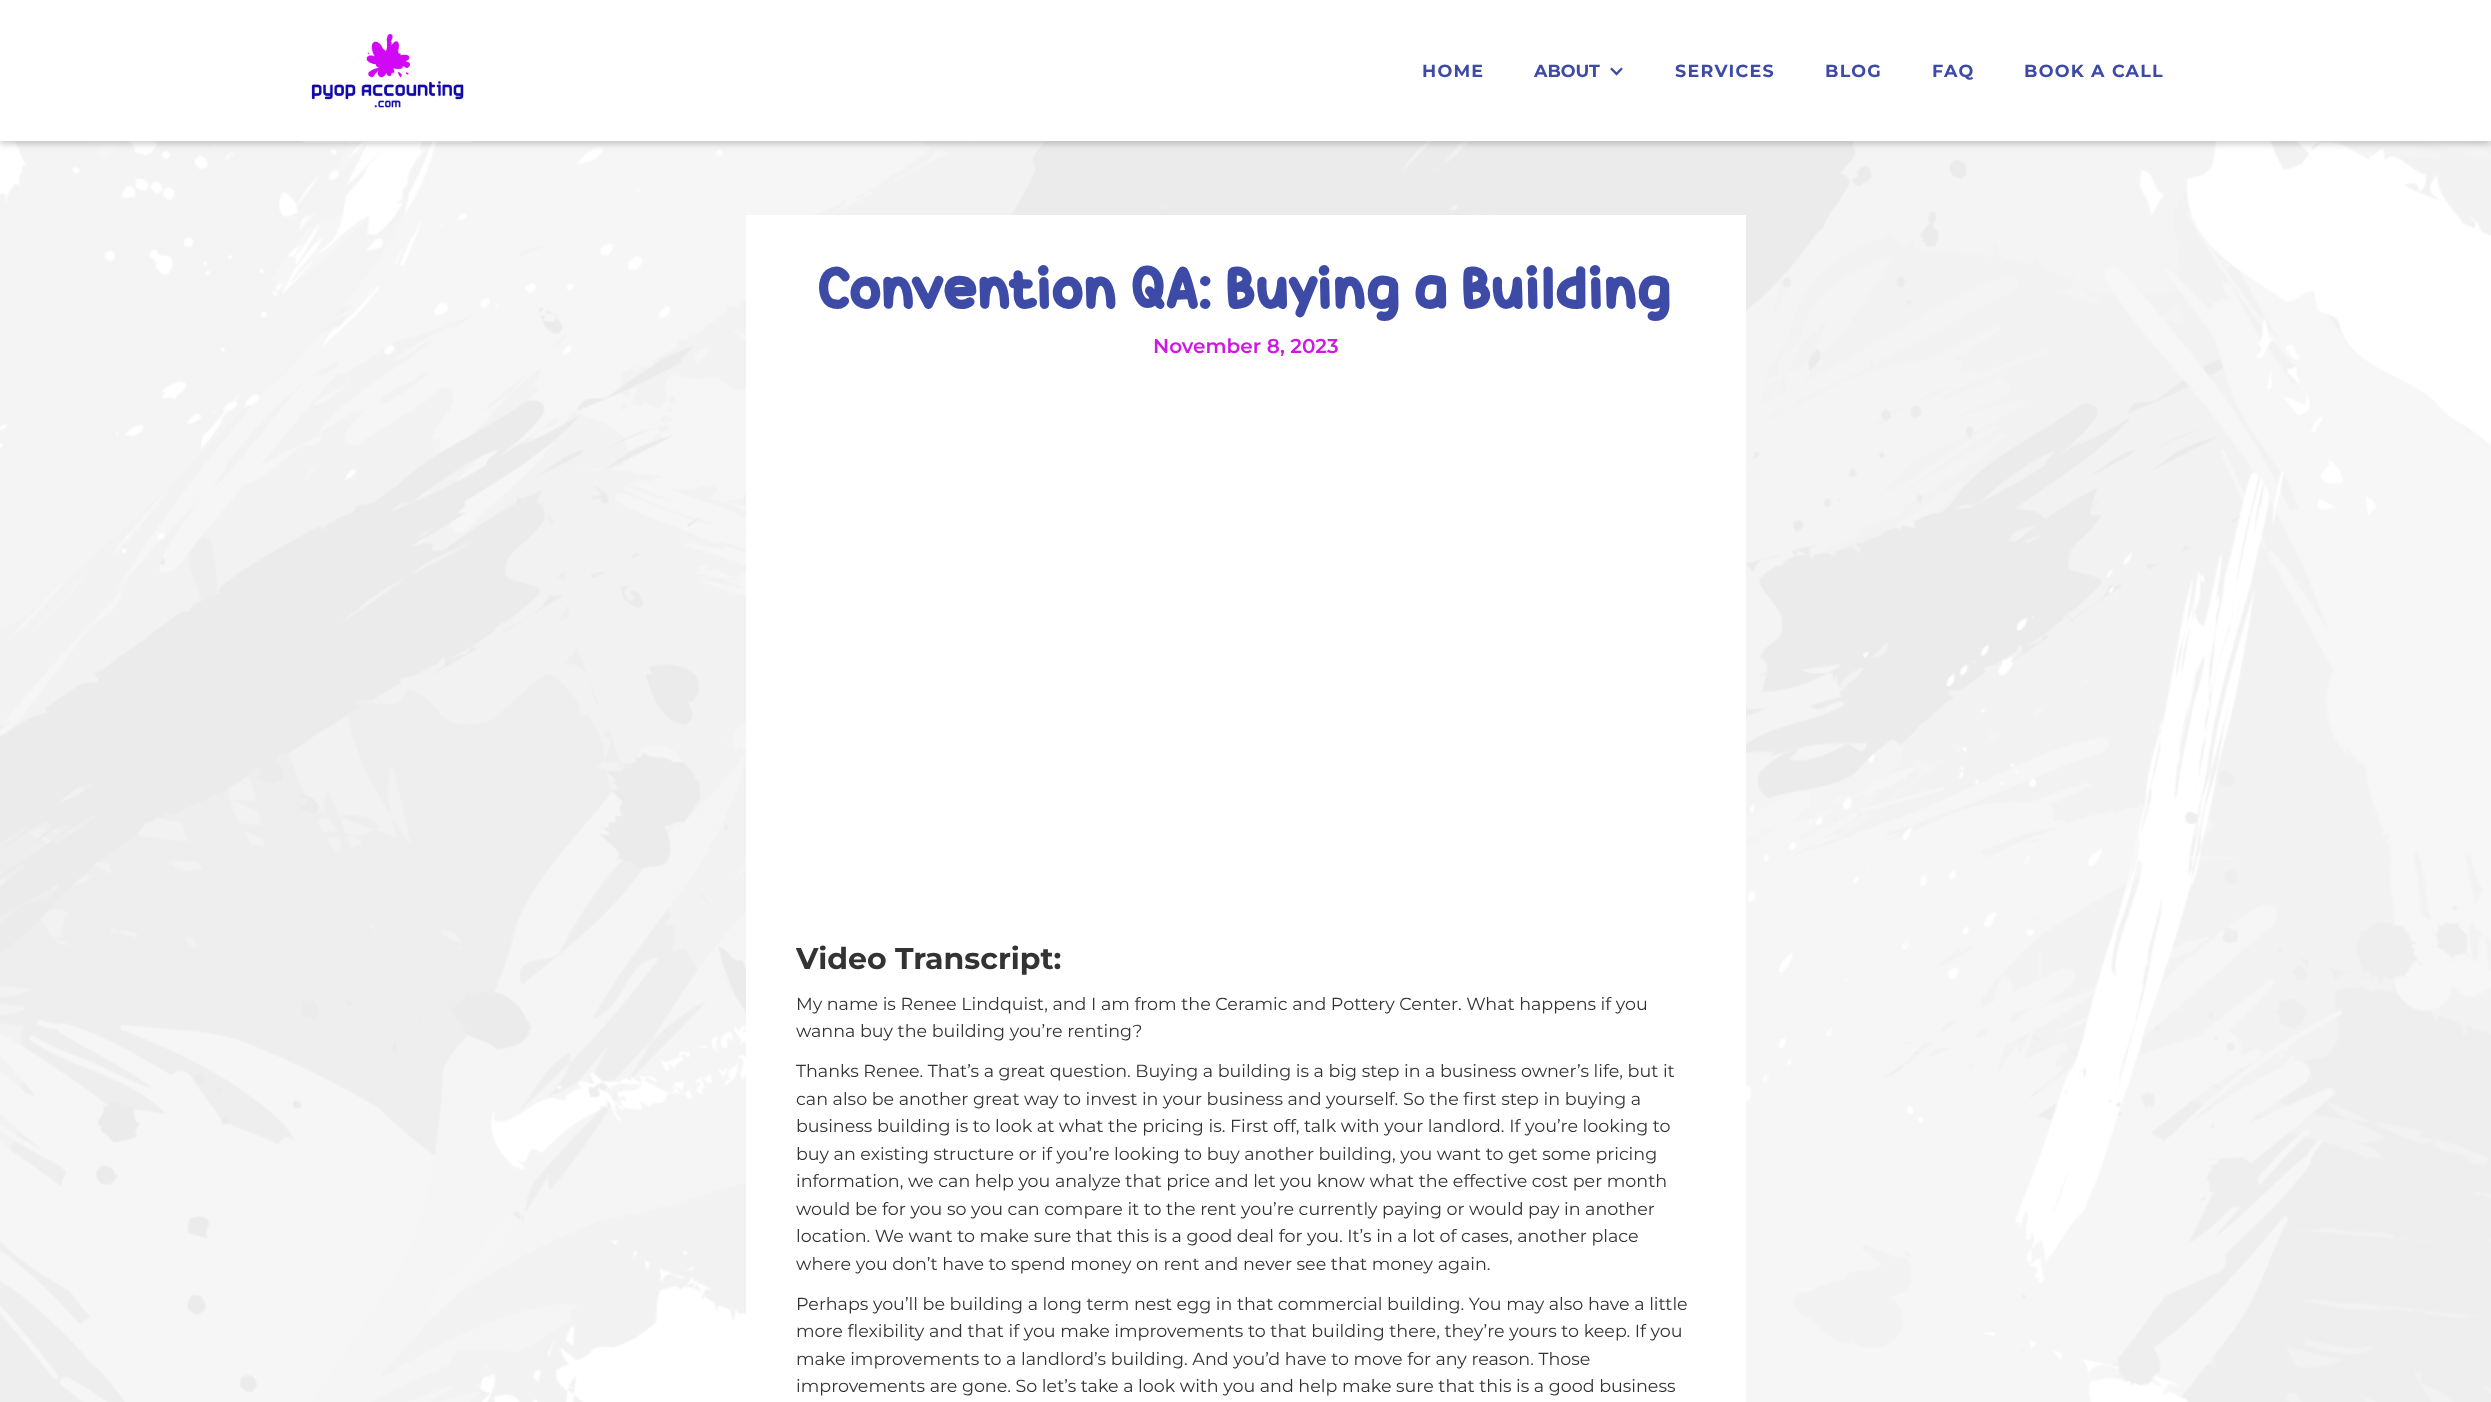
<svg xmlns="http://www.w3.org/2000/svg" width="2491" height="1402">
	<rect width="100%" height="100%" fill="#FFFFFF" />
	<image x="0" y="141" width="2491" height="1261" href="assets/img1.png" />
	<rect x="0" y="3" width="2491" height="141" fill="#000000" fill-opacity="0.2" filter="blur(3px)" />
	<rect x="0" y="0" width="2491" height="141" fill="#FFFFFF" />
	<image x="302" y="33" width="171" height="109" href="assets/img2.png" />
	<text x="1422" y="77" font-family="Montserrat" font-size="17.5" font-weight="700" letter-spacing="1.25" fill="#3D4BA6">HOME</text>
	<text x="1534" y="77" font-family="Montserrat" font-size="17.5" font-weight="700" fill="#3D4BA6">ABOUT</text>
	<image x="1610" y="67" width="13" height="9" href="assets/img3.png" />
	<g font-family="Montserrat" font-size="17.5" font-weight="700" letter-spacing="1.25" fill="#3D4BA6">
		<text x="1675" y="77">SERVICES</text>
		<text x="1825" y="77">BLOG</text>
		<text x="1932" y="77">FAQ</text>
		<text x="2024" y="77">BOOK A CALL</text>
	</g>
	<rect x="746" y="215" width="1000" height="1187" fill="#FFFFFF" />
	<text x="819" y="309" font-family="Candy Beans" font-size="60" fill="#3D4BA6">Convention QA: Buying a Building</text>
	<text x="1153" y="353" font-family="Montserrat" font-size="20" font-weight="600" fill="#CF18E4">November 8, 2023</text>
	<text x="796" y="969" font-family="Montserrat" font-size="30" font-weight="700" fill="#333333">Video Transcript:</text>
	<g font-family="Montserrat" font-size="17.5" fill="#333333">
		<text x="796" y="1010">My name is Renee Lindquist, and I am from the Ceramic and Pottery Center. What happens if you</text>
		<text x="796" y="1037">wanna buy the building you’re renting?</text>
		<text x="796" y="1077">Thanks Renee. That’s a great question. Buying a building is a big step in a business owner’s life, but it</text>
		<text x="796" y="1105">can also be another great way to invest in your business and yourself. So the first step in buying a</text>
		<text x="796" y="1132">business building is to look at what the pricing is. First off, talk with your landlord. If you’re looking to</text>
		<text x="796" y="1160">buy an existing structure or if you’re looking to buy another building, you want to get some pricing</text>
		<text x="796" y="1187">information, we can help you analyze that price and let you know what the effective cost per month</text>
		<text x="796" y="1215">would be for you so you can compare it to the rent you’re currently paying or would pay in another</text>
		<text x="796" y="1242">location. We want to make sure that this is a good deal for you. It’s in a lot of cases, another place</text>
		<text x="796" y="1270">where you don’t have to spend money on rent and never see that money again.</text>
		<text x="796" y="1310">Perhaps you’ll be building a long term nest egg in that commercial building. You may also have a little</text>
		<text x="796" y="1337">more flexibility and that if you make improvements to that building there, they’re yours to keep. If you</text>
		<text x="796" y="1365">make improvements to a landlord’s building. And you’d have to move for any reason. Those</text>
		<text x="796" y="1392">improvements are gone. So let’s take a look with you and help make sure that this is a good business</text>
	</g>
</svg>
